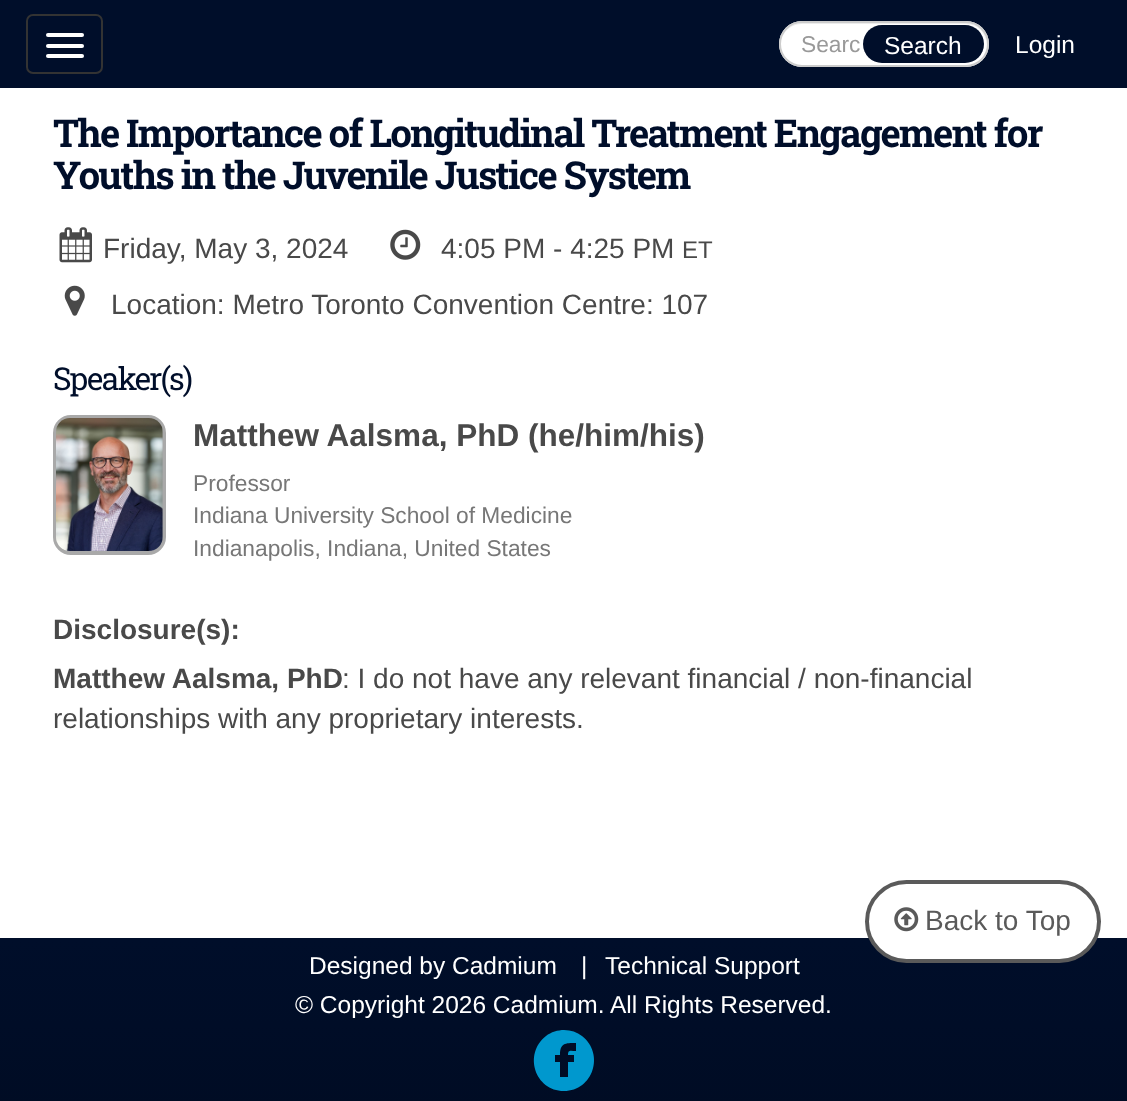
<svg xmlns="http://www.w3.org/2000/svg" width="1127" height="1101">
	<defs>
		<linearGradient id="g1" gradientUnits="userSpaceOnUse" x1="564" y1="940" x2="564" y2="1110"><stop offset="0" stop-color="#000E2A" /><stop offset="1" stop-color="#000C24" /></linearGradient>
	</defs>
	<rect width="100%" height="100%" fill="#FFFFFF" />
	<rect x="0" y="0" width="1127" height="88" fill="#000E2A" />
	<rect x="27" y="15" width="75" height="58" rx="6" fill="none" stroke="#333333" stroke-width="2" />
	<rect x="46" y="33" width="38" height="4" rx="2" fill="#FFFFFF" />
	<rect x="46" y="44" width="38" height="4" rx="2" fill="#FFFFFF" />
	<rect x="46" y="54" width="38" height="4" rx="2" fill="#FFFFFF" />
	<rect x="779" y="21" width="210" height="46" rx="23" fill="#FFFFFF" />
	<path d="M802 24H966C978 24 986 33 987 45V44C987 32 978 23 966 23H802C794 23 786 28 783 35C787 28 794 24 802 24Z" fill="#ECECEC" />
	<rect x="780" y="22" width="208" height="44" rx="22" fill="none" stroke="#CCCCCC" stroke-width="2" />
	<text x="801" y="52" font-family="Liberation Sans" font-size="22.75" fill="#999999">Searc</text>
	<rect x="863" y="25" width="121" height="38" rx="19" fill="#000E2A" />
	<g font-family="Liberation Sans" font-size="24.5" fill="#FFFFFF">
		<text x="884" y="54">Search</text>
		<text x="1015" y="53">Login</text>
	</g>
	<g font-family="Roboto Slab" font-size="38.5" font-weight="700" letter-spacing="-1.75" fill="#000E2A">
		<text x="53" y="147">The Importance of Longitudinal Treatment Engagement for</text>
		<text x="53" y="189">Youths in the Juvenile Justice System</text>
	</g>
	<image x="59" y="227" width="33" height="36" href="assets/img1.png" />
	<text x="103" y="258" font-family="Liberation Sans" font-size="28" fill="#494949">Friday, May 3, 2024</text>
	<image x="390" y="229" width="31" height="31" href="assets/img2.png" />
	<text x="441" y="258" font-family="Liberation Sans" font-size="28" fill="#494949">4:05 PM - 4:25 PM</text>
	<text x="682" y="258" font-family="Liberation Sans" font-size="24" fill="#494949">ET</text>
	<image x="64" y="285" width="21" height="31" href="assets/img3.png" />
	<text x="111" y="314" font-family="Liberation Sans" font-size="28" fill="#494949">Location: Metro Toronto Convention Centre: 107</text>
	<text x="53" y="390" font-family="Roboto Slab" font-size="31.5" letter-spacing="-1.75" fill="#000E2A">Speaker(s)</text>
	<rect x="55" y="417" width="109" height="136" rx="16" fill="none" stroke="#A9A9A9" stroke-width="4" />
	<image x="56" y="418" width="107" height="133" href="assets/img4.png" />
	<text x="193" y="446" font-family="Liberation Sans" font-size="31.5" font-weight="700" fill="#494949">Matthew Aalsma, PhD (he/him/his)</text>
	<g font-family="Liberation Sans" font-size="22.75" fill="#777777">
		<text x="193" y="491">Professor</text>
		<text x="193" y="523">Indiana University School of Medicine</text>
		<text x="193" y="556">Indianapolis, Indiana, United States</text>
	</g>
	<g font-family="Liberation Sans" font-size="28" font-weight="700" fill="#494949">
		<text x="53" y="639">Disclosure(s):</text>
		<text x="53" y="688">Matthew Aalsma, PhD</text>
	</g>
	<g font-family="Liberation Sans" font-size="28" fill="#494949">
		<text x="342" y="688">: I do not have any relevant financial / non-financial</text>
		<text x="53" y="728">relationships with any proprietary interests.</text>
	</g>
	<rect x="0" y="940" width="1127" height="161" fill="url(#g1)" />
	<rect x="0" y="938" width="1127" height="2" fill="#000E2A" />
	<rect x="867" y="882" width="232" height="79" rx="39.5" fill="#FFFFFF" stroke="#5A5A5A" stroke-width="4" />
	<image x="894" y="907" width="25" height="25" href="assets/img5.png" />
	<text x="925" y="930" font-family="Liberation Sans" font-size="28" fill="#5A5A5A">Back to Top</text>
	<g font-family="Liberation Sans" font-size="24.5" fill="#FFFFFF">
		<text x="309" y="974">Designed by Cadmium</text>
		<text x="581" y="974">|</text>
		<text x="605" y="974">Technical Support</text>
		<text x="295" y="1013">© Copyright 2026 Cadmium. All Rights Reserved.</text>
	</g>
	<path d="M564 1030C571 1030 577 1032 582 1036C605 1054 593 1091 564 1091C535 1091 523 1054 546 1036C551 1032 558 1030 564 1030ZM576 1043C565 1043 560 1043 560 1055H555V1062H560V1077H568V1062H574V1055H568C568 1049 571 1051 576 1051Z" fill="#0098CE" />
</svg>
